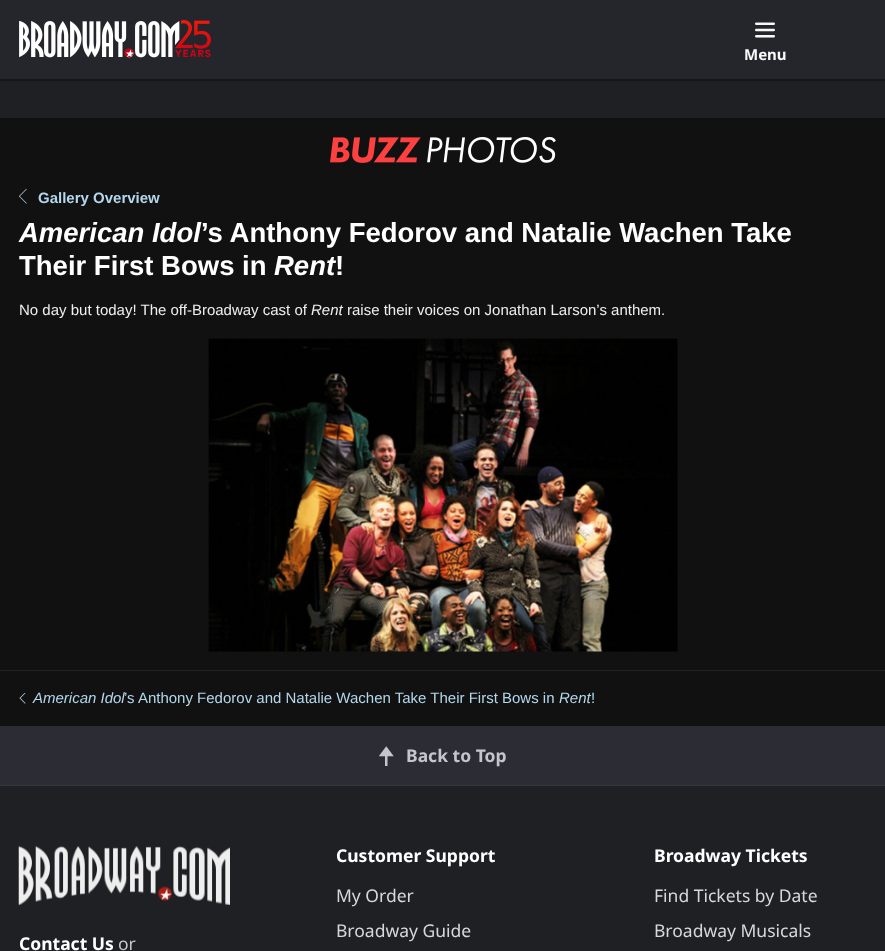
<svg xmlns="http://www.w3.org/2000/svg" width="885" height="951">
	<rect width="100%" height="100%" fill="#111111" />
	<rect x="0" y="0" width="885" height="79" fill="#25262B" />
	<image x="19" y="20" width="192" height="38" href="assets/img1.png" />
	<image x="755" y="22" width="20" height="16" href="assets/img2.png" />
	<text x="744" y="60" font-family="Noto Sans" font-size="15" font-weight="700" fill="#F9F9FA">Menu</text>
	<rect x="0" y="81" width="885" height="37" fill="#1F2023" />
	<rect x="0" y="79" width="885" height="2" fill="#161616" />
	<image x="330" y="137" width="226" height="26" href="assets/img3.png" />
	<image x="19" y="189" width="8" height="15" href="assets/img4.png" />
	<text x="38" y="203" font-family="Liberation Sans" font-size="15" font-weight="700" fill="#B3D7EC">Gallery Overview</text>
	<text x="19" y="242" font-family="Liberation Sans" font-size="27.5" font-weight="700" font-style="italic" fill="#FFFFFF">American Idol</text>
	<g font-family="Liberation Sans" font-size="27.5" font-weight="700" fill="#FFFFFF">
		<text x="201" y="242">’s Anthony Fedorov and Natalie Wachen Take</text>
		<text x="19" y="275">Their First Bows in</text>
	</g>
	<text x="274" y="275" font-family="Liberation Sans" font-size="27.5" font-weight="700" font-style="italic" fill="#FFFFFF">Rent</text>
	<text x="335" y="275" font-family="Liberation Sans" font-size="27.5" font-weight="700" fill="#FFFFFF">!</text>
	<text x="19" y="315" font-family="Liberation Sans" font-size="15" fill="#EEEEEE">No day but today! The off-Broadway cast of</text>
	<text x="311" y="315" font-family="Liberation Sans" font-size="15" font-style="italic" fill="#EEEEEE">Rent</text>
	<text x="347" y="315" font-family="Liberation Sans" font-size="15" fill="#EEEEEE">raise their voices on Jonathan Larson’s anthem.</text>
	<image x="208" y="338" width="470" height="314" href="assets/img5.png" />
	<rect x="0" y="670" width="885" height="1" fill="#222222" />
	<image x="19" y="693" width="7" height="11" href="assets/img6.png" />
	<text x="33" y="703" font-family="Liberation Sans" font-size="15" font-style="italic" fill="#B3D7EC">American Idol</text>
	<text x="124" y="703" font-family="Liberation Sans" font-size="15" fill="#B3D7EC">’s Anthony Fedorov and Natalie Wachen Take Their First Bows in</text>
	<text x="559" y="703" font-family="Liberation Sans" font-size="15" font-style="italic" fill="#B3D7EC">Rent</text>
	<text x="591" y="703" font-family="Liberation Sans" font-size="15" fill="#B3D7EC">!</text>
	<rect x="0" y="726" width="885" height="59" fill="#2B2C34" />
	<rect x="0" y="785" width="885" height="1" fill="#343540" />
	<image x="379" y="746" width="15" height="20" href="assets/img7.png" />
	<text x="406" y="762" font-family="Noto Sans" font-size="17.5" font-weight="700" fill="#C5C6CD">Back to Top</text>
	<rect x="0" y="786" width="885" height="165" fill="#1F2023" />
	<text x="336" y="862" font-family="Noto Sans" font-size="17.5" font-weight="700" fill="#FFFFFF">Customer Support</text>
	<g font-family="Noto Sans" font-size="17.5" fill="#D7D8DD">
		<text x="336" y="902">My Order</text>
		<text x="336" y="937">Broadway Guide</text>
	</g>
	<text x="654" y="862" font-family="Noto Sans" font-size="17.5" font-weight="700" fill="#FFFFFF">Broadway Tickets</text>
	<g font-family="Noto Sans" font-size="17.5" fill="#D7D8DD">
		<text x="654" y="902">Find Tickets by Date</text>
		<text x="654" y="937">Broadway Musicals</text>
	</g>
	<image x="18" y="846" width="212" height="59" href="assets/img8.png" />
	<text x="19" y="950" font-family="Noto Sans" font-size="17.5" font-weight="700" fill="#FFFFFF">Contact Us</text>
	<text x="118" y="950" font-family="Noto Sans" font-size="17.5" fill="#C5C6CD">or</text>
</svg>
